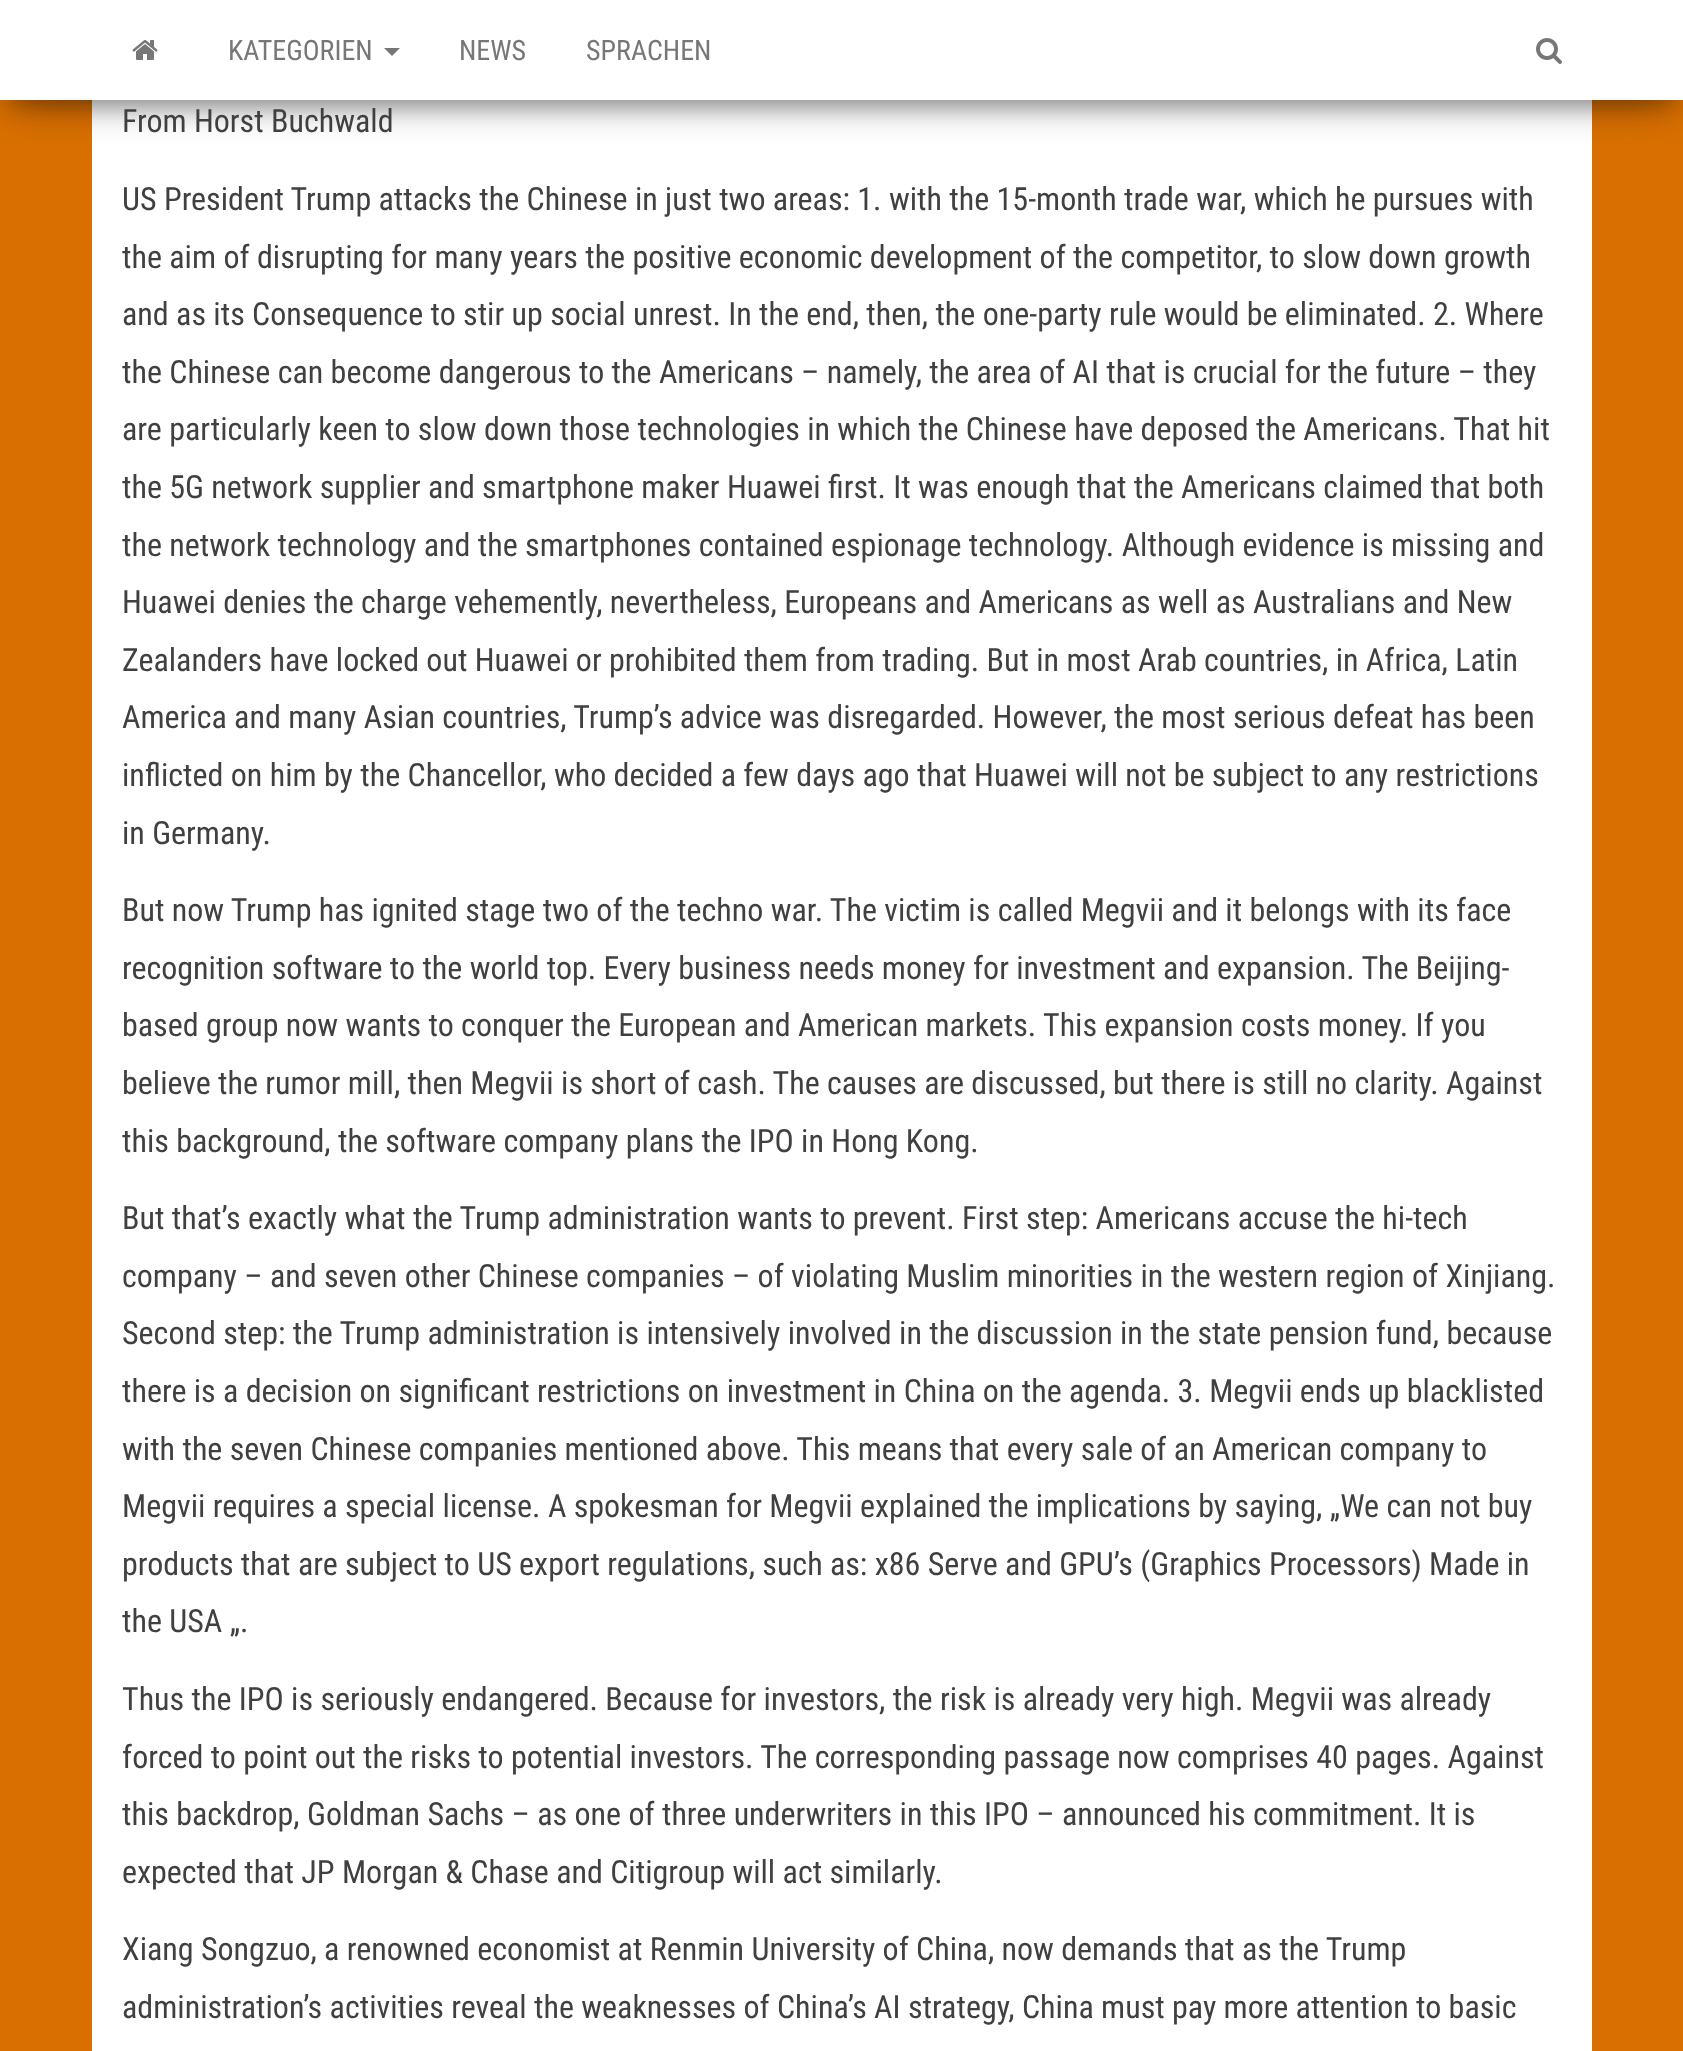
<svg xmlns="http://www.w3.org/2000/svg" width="1683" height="2051">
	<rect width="100%" height="100%" fill="#D86F00" />
	<rect x="92" y="100" width="1500" height="1951" fill="#FFFFFF" />
	<rect x="10" y="26" width="1664" height="80" fill="#000000" fill-opacity="0.2" filter="blur(10px)" />
	<rect x="0" y="6" width="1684" height="100" fill="#000000" fill-opacity="0.12" filter="blur(20px)" />
	<rect x="24" y="44" width="1636" height="52" fill="#000000" fill-opacity="0.42" filter="blur(20px)" />
	<rect x="0" y="0" width="1683" height="100" fill="#FFFFFF" />
	<image x="132" y="40" width="26" height="20" href="assets/img1.png" />
	<text x="228" y="60" font-family="Roboto Condensed" font-size="28" fill="#777777">KATEGORIEN</text>
	<path d="M384 48H400L392 56Z" fill="#777777" />
	<g font-family="Roboto Condensed" font-size="28" fill="#777777">
		<text x="459" y="60">NEWS</text>
		<text x="586" y="60">SPRACHEN</text>
	</g>
	<image x="1536" y="38" width="26" height="26" href="assets/img2.png" />
	<g font-family="Roboto Condensed" font-size="32" fill="#404040">
		<text x="122" y="132">From Horst Buchwald</text>
		<text x="122" y="210">US President Trump attacks the Chinese in just two areas: 1. with the 15-month trade war, which he pursues with</text>
		<text x="122" y="268">the aim of disrupting for many years the positive economic development of the competitor, to slow down growth</text>
		<text x="122" y="325">and as its Consequence to stir up social unrest. In the end, then, the one-party rule would be eliminated. 2. Where</text>
		<text x="122" y="383">the Chinese can become dangerous to the Americans – namely, the area of AI that is crucial for the future – they</text>
		<text x="122" y="440">are particularly keen to slow down those technologies in which the Chinese have deposed the Americans. That hit</text>
		<text x="122" y="498">the 5G network supplier and smartphone maker Huawei first. It was enough that the Americans claimed that both</text>
		<text x="122" y="556">the network technology and the smartphones contained espionage technology. Although evidence is missing and</text>
		<text x="122" y="613">Huawei denies the charge vehemently, nevertheless, Europeans and Americans as well as Australians and New</text>
		<text x="122" y="671">Zealanders have locked out Huawei or prohibited them from trading. But in most Arab countries, in Africa, Latin</text>
		<text x="122" y="728">America and many Asian countries, Trump’s advice was disregarded. However, the most serious defeat has been</text>
		<text x="122" y="786">inflicted on him by the Chancellor, who decided a few days ago that Huawei will not be subject to any restrictions</text>
		<text x="122" y="844">in Germany.</text>
		<text x="122" y="921">But now Trump has ignited stage two of the techno war. The victim is called Megvii and it belongs with its face</text>
		<text x="122" y="979">recognition software to the world top. Every business needs money for investment and expansion. The Beijing-</text>
		<text x="122" y="1036">based group now wants to conquer the European and American markets. This expansion costs money. If you</text>
		<text x="122" y="1094">believe the rumor mill, then Megvii is short of cash. The causes are discussed, but there is still no clarity. Against</text>
		<text x="122" y="1152">this background, the software company plans the IPO in Hong Kong.</text>
		<text x="122" y="1229">But that’s exactly what the Trump administration wants to prevent. First step: Americans accuse the hi-tech</text>
		<text x="122" y="1287">company – and seven other Chinese companies – of violating Muslim minorities in the western region of Xinjiang.</text>
		<text x="122" y="1344">Second step: the Trump administration is intensively involved in the discussion in the state pension fund, because</text>
		<text x="122" y="1402">there is a decision on significant restrictions on investment in China on the agenda. 3. Megvii ends up blacklisted</text>
		<text x="122" y="1460">with the seven Chinese companies mentioned above. This means that every sale of an American company to</text>
		<text x="122" y="1517">Megvii requires a special license. A spokesman for Megvii explained the implications by saying, „We can not buy</text>
		<text x="122" y="1575">products that are subject to US export regulations, such as: x86 Serve and GPU’s (Graphics Processors) Made in</text>
		<text x="122" y="1632">the USA „.</text>
		<text x="122" y="1710">Thus the IPO is seriously endangered. Because for investors, the risk is already very high. Megvii was already</text>
		<text x="122" y="1768">forced to point out the risks to potential investors. The corresponding passage now comprises 40 pages. Against</text>
		<text x="122" y="1825">this backdrop, Goldman Sachs – as one of three underwriters in this IPO – announced his commitment. It is</text>
		<text x="122" y="1883">expected that JP Morgan &amp; Chase and Citigroup will act similarly.</text>
		<text x="122" y="1960">Xiang Songzuo, a renowned economist at Renmin University of China, now demands that as the Trump</text>
		<text x="122" y="2018">administration’s activities reveal the weaknesses of China’s AI strategy, China must pay more attention to basic</text>
	</g>
</svg>
